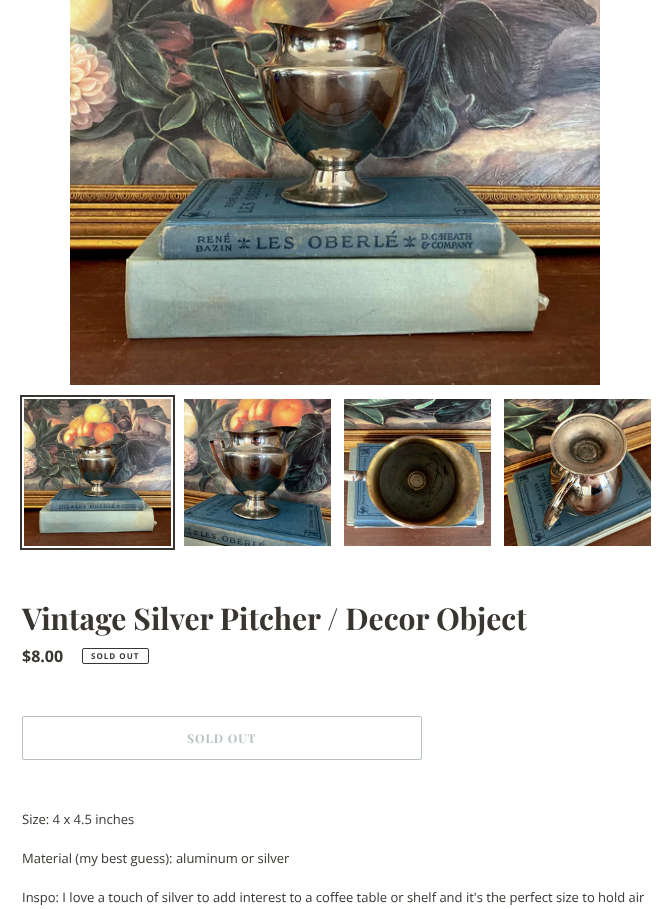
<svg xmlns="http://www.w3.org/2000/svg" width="670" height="909">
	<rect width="100%" height="100%" fill="#FFFFFF" />
	<image x="70" y="0" width="530" height="385" href="assets/img1.png" />
	<rect x="21" y="396" width="153" height="153" fill="none" stroke="#393531" stroke-width="2" />
	<image x="24" y="399" width="147" height="147" href="assets/img2.png" />
	<image x="184" y="399" width="147" height="147" href="assets/img3.png" />
	<image x="344" y="399" width="147" height="147" href="assets/img4.png" />
	<image x="504" y="399" width="147" height="147" href="assets/img5.png" />
	<text x="22" y="630" font-family="Playfair Display" font-size="30" font-weight="700" fill="#393531">Vintage Silver Pitcher / Decor Object</text>
	<text x="22" y="662" font-family="Open Sans" font-size="16" font-weight="700" fill="#393531">$8.00</text>
	<rect x="82.5" y="648.5" width="66" height="15" rx="1.5" fill="none" stroke="#393531" />
	<text x="91" y="659" font-family="Open Sans" font-size="8" font-weight="700" letter-spacing="1" fill="#393531">SOLD OUT</text>
	<rect x="22.5" y="716.5" width="399" height="43" rx="1.5" fill="none" stroke="#B8C2BF" />
	<text x="187" y="743" font-family="Playfair Display" font-size="12" font-weight="700" letter-spacing="1" fill="#B8C2BF">SOLD OUT</text>
	<g font-family="Open Sans" font-size="13" fill="#393531">
		<text x="22" y="824">Size: 4 x 4.5 inches</text>
		<text x="22" y="863">Material (my best guess): aluminum or silver</text>
		<text x="22" y="902">Inspo: I love a touch of silver to add interest to a coffee table or shelf and it's the perfect size to hold air</text>
	</g>
</svg>
